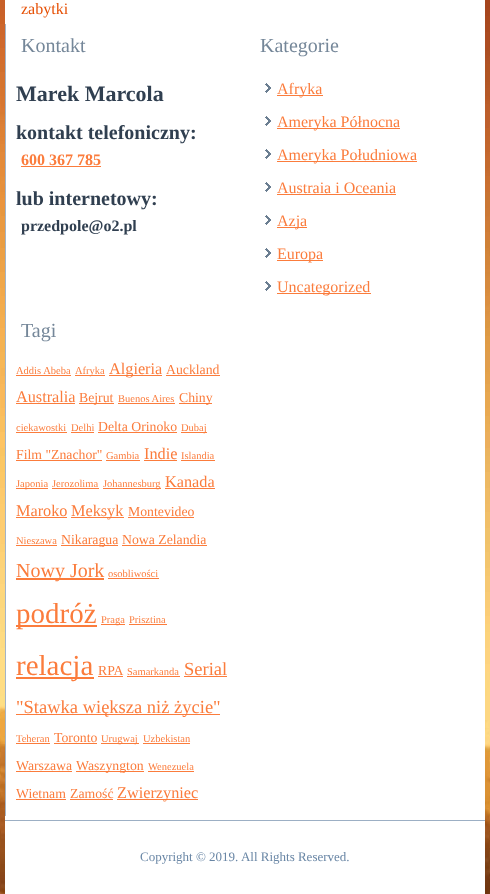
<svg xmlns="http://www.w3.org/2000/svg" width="490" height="894">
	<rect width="100%" height="100%" fill="#FFFFFF" />
	<image x="0" y="0" width="490" height="894" href="assets/img1.png" />
	<rect x="5" y="0" width="480" height="894" fill="#FFFFFF" />
	<text x="21" y="14" font-family="Liberation Serif" font-size="16" fill="#E65005">zabytki</text>
	<rect x="5" y="24" width="1" height="792" fill="#A3B4C8" />
	<text x="21" y="52" font-family="Liberation Serif" font-size="20" fill="#758799">Kontakt</text>
	<text x="16" y="101" font-family="Liberation Serif" font-size="22" font-weight="700" fill="#303F50">Marek Marcola</text>
	<text x="16" y="139" font-family="Liberation Serif" font-size="20" font-weight="700" fill="#303F50">kontakt telefoniczny:</text>
	<text x="21" y="165" font-family="Liberation Serif" font-size="16" font-weight="700" fill="#FB7C3C">600 367 785</text>
	<rect x="21" y="166" width="80" height="1" fill="#FB7C3C" />
	<text x="16" y="205" font-family="Liberation Serif" font-size="20" font-weight="700" fill="#303F50">lub internetowy:</text>
	<text x="21" y="231" font-family="Liberation Serif" font-size="16" font-weight="700" fill="#303F50">przedpole@o2.pl</text>
	<text x="260" y="52" font-family="Liberation Serif" font-size="20" fill="#758799">Kategorie</text>
	<image x="265" y="83" width="6" height="10" href="assets/img2.png" />
	<rect x="277" y="95" width="46" height="1" fill="#FB7C3C" />
	<text x="277" y="94" font-family="Liberation Serif" font-size="16" fill="#FB7C3C">Afryka</text>
	<image x="265" y="116" width="6" height="10" href="assets/img2.png" />
	<rect x="277" y="128" width="123" height="1" fill="#FB7C3C" />
	<text x="277" y="127" font-family="Liberation Serif" font-size="16" fill="#FB7C3C">Ameryka Północna</text>
	<image x="265" y="149" width="6" height="10" href="assets/img2.png" />
	<rect x="277" y="161" width="140" height="1" fill="#FB7C3C" />
	<text x="277" y="160" font-family="Liberation Serif" font-size="16" fill="#FB7C3C">Ameryka Południowa</text>
	<image x="265" y="182" width="6" height="10" href="assets/img2.png" />
	<text x="277" y="193" font-family="Liberation Serif" font-size="16" fill="#FB7C3C">Austraia i Oceania</text>
	<rect x="277" y="194" width="119" height="1" fill="#FB7C3C" />
	<image x="265" y="215" width="6" height="10" href="assets/img2.png" />
	<rect x="277" y="227" width="30" height="1" fill="#FB7C3C" />
	<text x="277" y="226" font-family="Liberation Serif" font-size="16" fill="#FB7C3C">Azja</text>
	<image x="265" y="248" width="6" height="10" href="assets/img2.png" />
	<rect x="277" y="260" width="46" height="1" fill="#FB7C3C" />
	<text x="277" y="259" font-family="Liberation Serif" font-size="16" fill="#FB7C3C">Europa</text>
	<image x="265" y="281" width="6" height="10" href="assets/img2.png" />
	<rect x="277" y="293" width="94" height="1" fill="#FB7C3C" />
	<text x="277" y="292" font-family="Liberation Serif" font-size="16" fill="#FB7C3C">Uncategorized</text>
	<text x="21" y="337" font-family="Liberation Serif" font-size="20" fill="#758799">Tagi</text>
	<text x="16" y="374" font-family="Liberation Serif" font-size="10.5" fill="#FB7C3C">Addis Abeba</text>
	<rect x="16" y="375" width="55" height="1" fill="#FB7C3C" />
	<rect x="75" y="375" width="30" height="1" fill="#FB7C3C" />
	<text x="75" y="374" font-family="Liberation Serif" font-size="10.5" fill="#FB7C3C">Afryka</text>
	<rect x="109" y="375" width="53" height="1" fill="#FB7C3C" />
	<text x="109" y="374" font-family="Liberation Serif" font-size="16.25" fill="#FB7C3C">Algieria</text>
	<text x="166" y="374" font-family="Liberation Serif" font-size="13.75" fill="#FB7C3C">Auckland</text>
	<rect x="166" y="375" width="54" height="1" fill="#FB7C3C" />
	<text x="16" y="402" font-family="Liberation Serif" font-size="16.25" fill="#FB7C3C">Australia</text>
	<rect x="16" y="403" width="59" height="1" fill="#FB7C3C" />
	<rect x="79" y="403" width="35" height="1" fill="#FB7C3C" />
	<text x="79" y="402" font-family="Liberation Serif" font-size="13.75" fill="#FB7C3C">Bejrut</text>
	<text x="118" y="402" font-family="Liberation Serif" font-size="10.5" fill="#FB7C3C">Buenos Aires</text>
	<rect x="118" y="403" width="57" height="1" fill="#FB7C3C" />
	<rect x="179" y="403" width="33" height="1" fill="#FB7C3C" />
	<text x="179" y="402" font-family="Liberation Serif" font-size="13.75" fill="#FB7C3C">Chiny</text>
	<text x="16" y="431" font-family="Liberation Serif" font-size="10.5" fill="#FB7C3C">ciekawostki</text>
	<rect x="16" y="432" width="51" height="1" fill="#FB7C3C" />
	<text x="71" y="431" font-family="Liberation Serif" font-size="10.5" fill="#FB7C3C">Delhi</text>
	<rect x="71" y="432" width="23" height="1" fill="#FB7C3C" />
	<text x="98" y="431" font-family="Liberation Serif" font-size="13.75" fill="#FB7C3C">Delta Orinoko</text>
	<rect x="98" y="432" width="79" height="1" fill="#FB7C3C" />
	<rect x="181" y="432" width="26" height="1" fill="#FB7C3C" />
	<text x="181" y="431" font-family="Liberation Serif" font-size="10.5" fill="#FB7C3C">Dubaj</text>
	<text x="16" y="459" font-family="Liberation Serif" font-size="13.75" fill="#FB7C3C">Film "Znachor"</text>
	<rect x="16" y="460" width="86" height="1" fill="#FB7C3C" />
	<text x="106" y="459" font-family="Liberation Serif" font-size="10.5" fill="#FB7C3C">Gambia</text>
	<rect x="106" y="460" width="34" height="1" fill="#FB7C3C" />
	<text x="144" y="459" font-family="Liberation Serif" font-size="16.25" fill="#FB7C3C">Indie</text>
	<rect x="144" y="460" width="33" height="1" fill="#FB7C3C" />
	<text x="181" y="459" font-family="Liberation Serif" font-size="10.5" fill="#FB7C3C">Islandia</text>
	<rect x="181" y="460" width="34" height="1" fill="#FB7C3C" />
	<rect x="16" y="488" width="32" height="1" fill="#FB7C3C" />
	<g font-family="Liberation Serif" font-size="10.5" fill="#FB7C3C">
		<text x="16" y="487">Japonia</text>
		<text x="52" y="487">Jerozolima</text>
	</g>
	<rect x="52" y="488" width="47" height="1" fill="#FB7C3C" />
	<rect x="103" y="488" width="58" height="1" fill="#FB7C3C" />
	<text x="103" y="487" font-family="Liberation Serif" font-size="10.5" fill="#FB7C3C">Johannesburg</text>
	<text x="165" y="487" font-family="Liberation Serif" font-size="16.25" fill="#FB7C3C">Kanada</text>
	<rect x="165" y="488" width="50" height="1" fill="#FB7C3C" />
	<text x="16" y="516" font-family="Liberation Serif" font-size="16.25" fill="#FB7C3C">Maroko</text>
	<rect x="16" y="517" width="51" height="1" fill="#FB7C3C" />
	<rect x="71" y="517" width="53" height="1" fill="#FB7C3C" />
	<text x="71" y="516" font-family="Liberation Serif" font-size="16.25" fill="#FB7C3C">Meksyk</text>
	<text x="128" y="516" font-family="Liberation Serif" font-size="13.75" fill="#FB7C3C">Montevideo</text>
	<rect x="128" y="517" width="66" height="1" fill="#FB7C3C" />
	<text x="16" y="544" font-family="Liberation Serif" font-size="10.5" fill="#FB7C3C">Nieszawa</text>
	<rect x="16" y="545" width="41" height="1" fill="#FB7C3C" />
	<rect x="61" y="545" width="57" height="1" fill="#FB7C3C" />
	<g font-family="Liberation Serif" font-size="13.75" fill="#FB7C3C">
		<text x="61" y="544">Nikaragua</text>
		<text x="122" y="544">Nowa Zelandia</text>
	</g>
	<rect x="122" y="545" width="85" height="1" fill="#FB7C3C" />
	<rect x="16" y="578" width="88" height="2" fill="#FB7C3C" />
	<text x="16" y="577" font-family="Liberation Serif" font-size="20" fill="#FB7C3C">Nowy Jork</text>
	<text x="108" y="577" font-family="Liberation Serif" font-size="10.5" fill="#FB7C3C">osobliwości</text>
	<rect x="108" y="578" width="51" height="1" fill="#FB7C3C" />
	<rect x="16" y="625" width="81" height="2" fill="#FB7C3C" />
	<text x="16" y="623" font-family="Liberation Serif" font-size="29" fill="#FB7C3C">podróż</text>
	<rect x="101" y="624" width="24" height="1" fill="#FB7C3C" />
	<g font-family="Liberation Serif" font-size="10.5" fill="#FB7C3C">
		<text x="101" y="623">Praga</text>
		<text x="129" y="623">Prisztina</text>
	</g>
	<rect x="129" y="624" width="38" height="1" fill="#FB7C3C" />
	<rect x="16" y="677" width="78" height="2" fill="#FB7C3C" />
	<text x="16" y="675" font-family="Liberation Serif" font-size="29" fill="#FB7C3C">relacja</text>
	<text x="98" y="675" font-family="Liberation Serif" font-size="13.75" fill="#FB7C3C">RPA</text>
	<rect x="98" y="676" width="25" height="1" fill="#FB7C3C" />
	<text x="127" y="675" font-family="Liberation Serif" font-size="10.5" fill="#FB7C3C">Samarkanda</text>
	<rect x="127" y="676" width="53" height="1" fill="#FB7C3C" />
	<text x="184" y="675" font-family="Liberation Serif" font-size="18.5" fill="#FB7C3C">Serial</text>
	<rect x="184" y="676" width="43" height="1" fill="#FB7C3C" />
	<rect x="16" y="714" width="204" height="1" fill="#FB7C3C" />
	<text x="16" y="713" font-family="Liberation Serif" font-size="18.5" fill="#FB7C3C">"Stawka większa niż życie"</text>
	<text x="16" y="742" font-family="Liberation Serif" font-size="10.5" fill="#FB7C3C">Teheran</text>
	<rect x="16" y="743" width="34" height="1" fill="#FB7C3C" />
	<text x="54" y="742" font-family="Liberation Serif" font-size="13.75" fill="#FB7C3C">Toronto</text>
	<rect x="54" y="743" width="43" height="1" fill="#FB7C3C" />
	<rect x="101" y="743" width="38" height="1" fill="#FB7C3C" />
	<g font-family="Liberation Serif" font-size="10.5" fill="#FB7C3C">
		<text x="101" y="742">Urugwaj</text>
		<text x="143" y="742">Uzbekistan</text>
	</g>
	<rect x="143" y="743" width="47" height="1" fill="#FB7C3C" />
	<text x="16" y="770" font-family="Liberation Serif" font-size="13.75" fill="#FB7C3C">Warszawa</text>
	<rect x="16" y="771" width="56" height="1" fill="#FB7C3C" />
	<rect x="76" y="771" width="68" height="1" fill="#FB7C3C" />
	<text x="76" y="770" font-family="Liberation Serif" font-size="13.75" fill="#FB7C3C">Waszyngton</text>
	<text x="148" y="770" font-family="Liberation Serif" font-size="10.5" fill="#FB7C3C">Wenezuela</text>
	<rect x="148" y="771" width="46" height="1" fill="#FB7C3C" />
	<text x="16" y="798" font-family="Liberation Serif" font-size="13.75" fill="#FB7C3C">Wietnam</text>
	<rect x="16" y="799" width="50" height="1" fill="#FB7C3C" />
	<text x="70" y="798" font-family="Liberation Serif" font-size="13.75" fill="#FB7C3C">Zamość</text>
	<rect x="70" y="799" width="43" height="1" fill="#FB7C3C" />
	<rect x="117" y="799" width="81" height="1" fill="#FB7C3C" />
	<text x="117" y="798" font-family="Liberation Serif" font-size="16.25" fill="#FB7C3C">Zwierzyniec</text>
	<rect x="5" y="820" width="480" height="1" fill="#9CAFC4" />
	<text x="140" y="861" font-family="Liberation Serif" font-size="13" fill="#6986A5">Copyright © 2019. All Rights Reserved.</text>
</svg>
